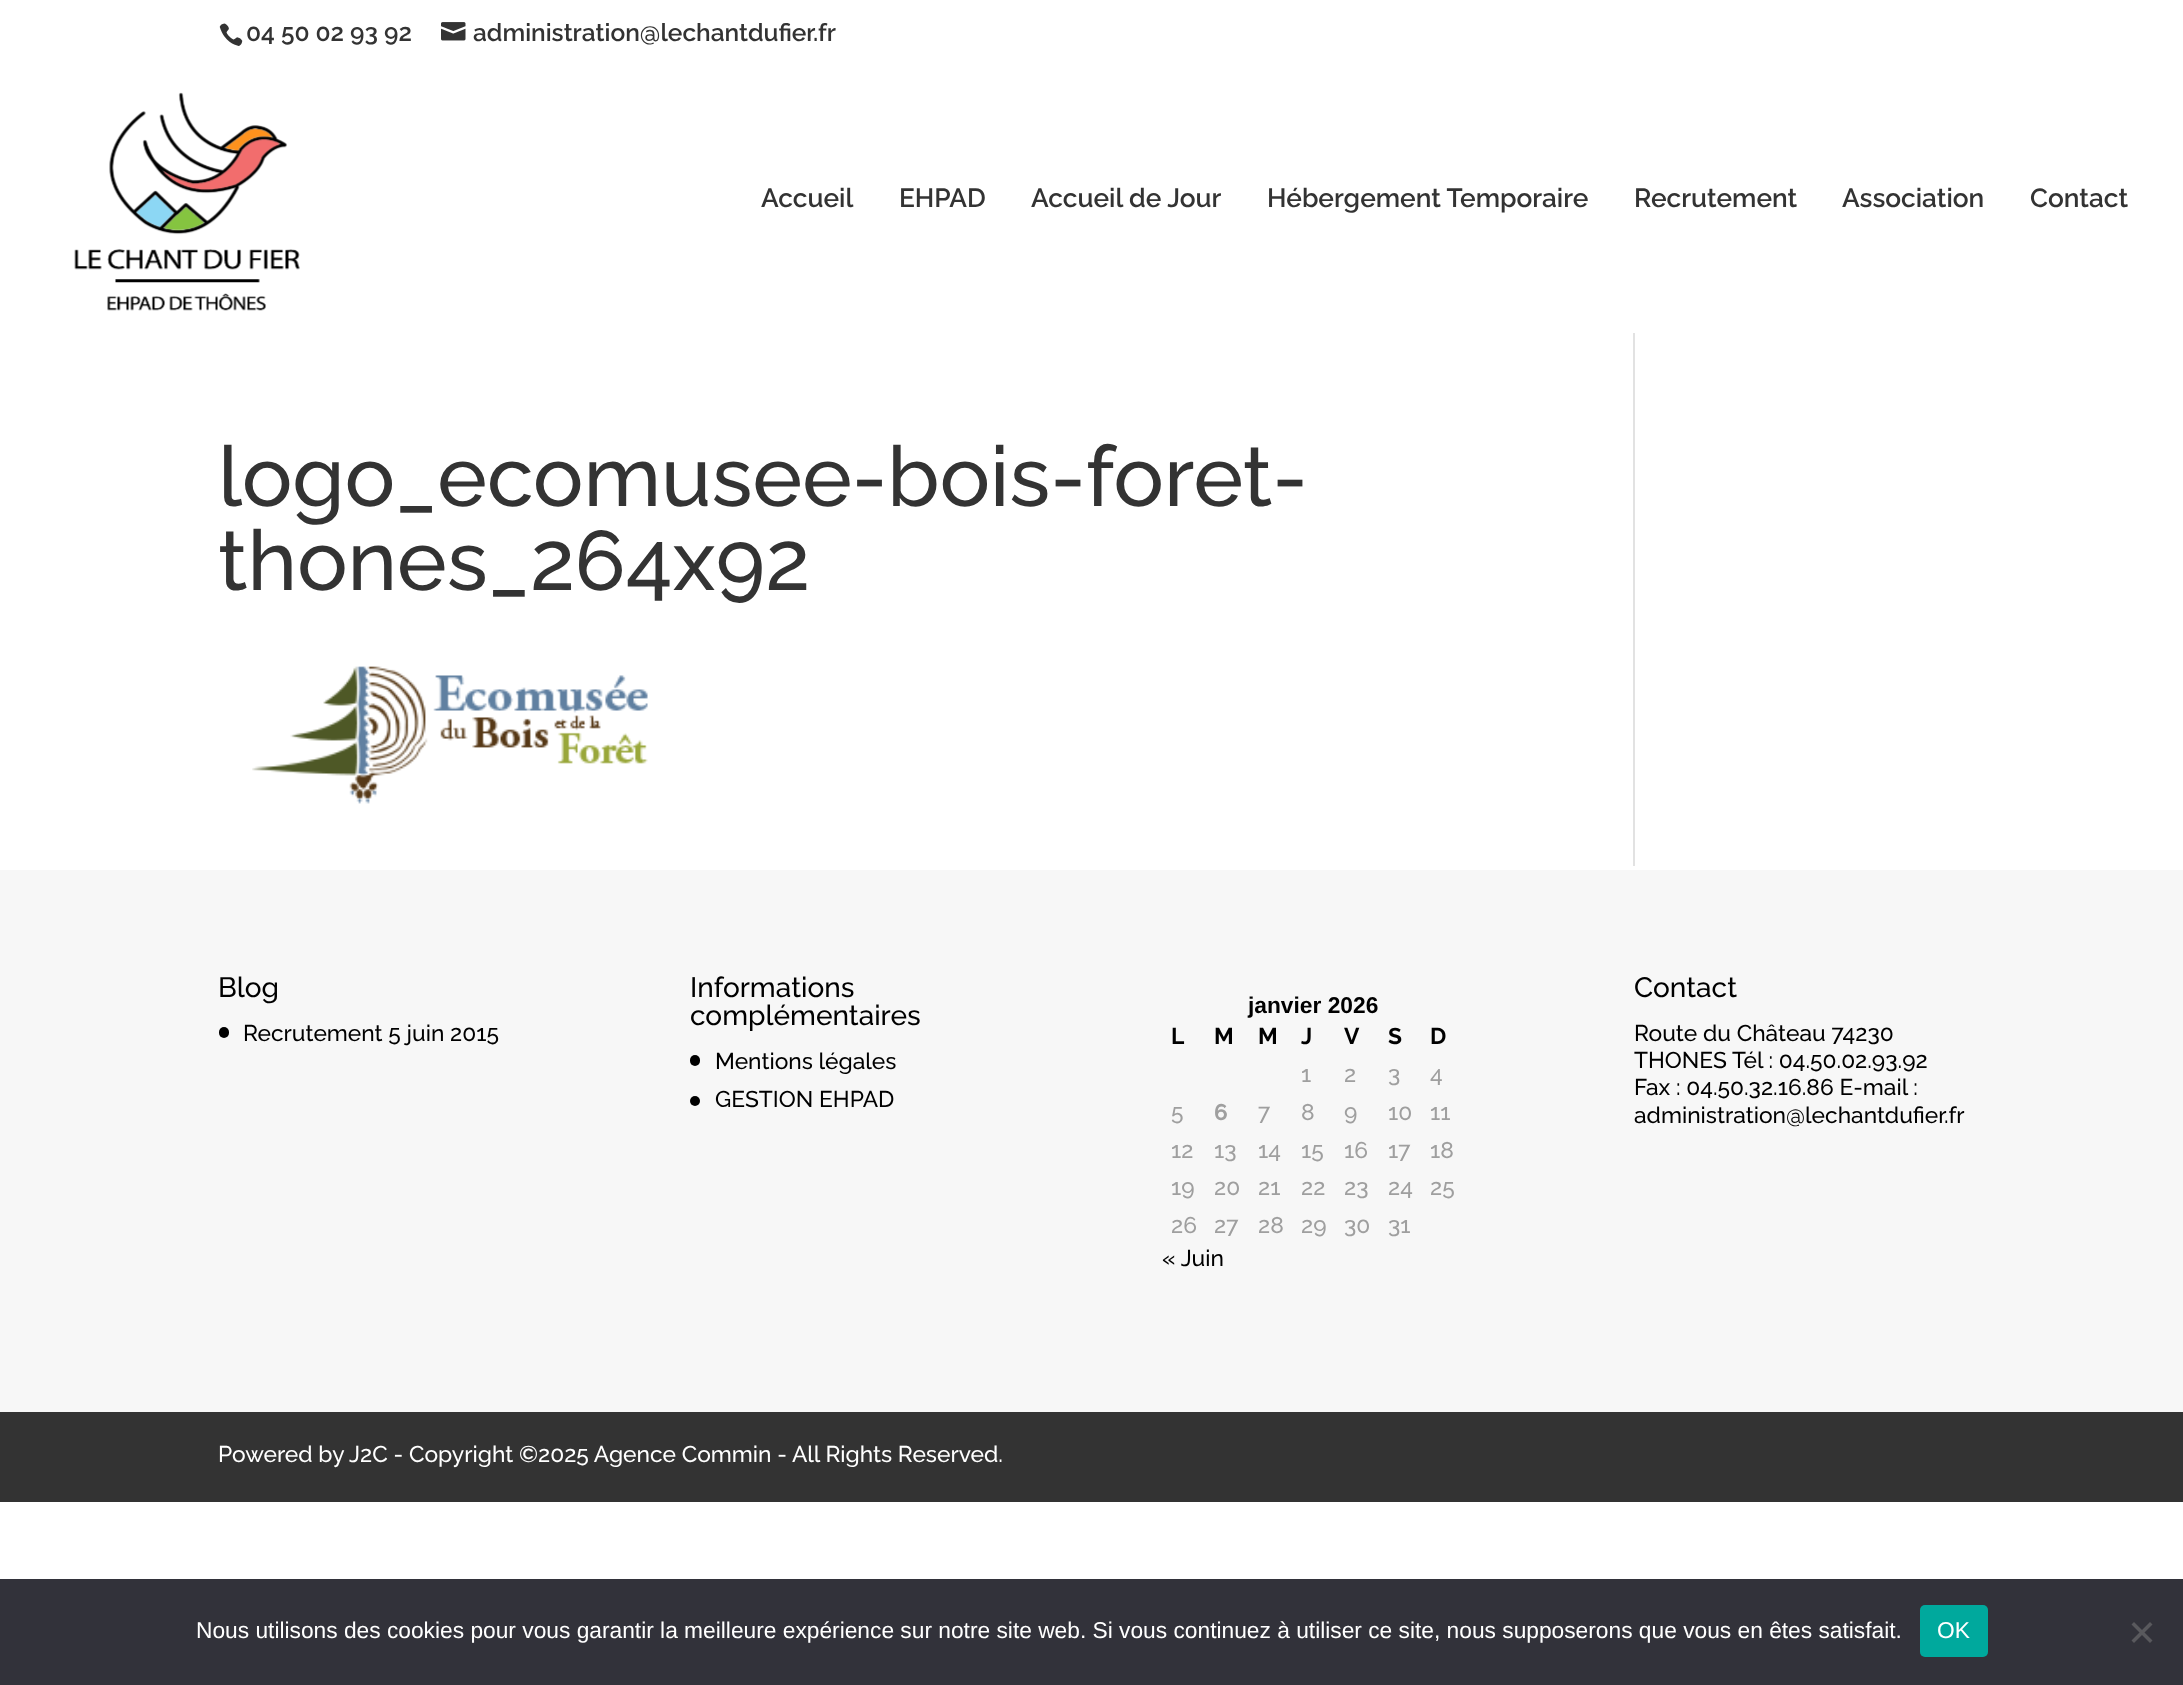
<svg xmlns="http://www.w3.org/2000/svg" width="2183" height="1685">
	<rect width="100%" height="100%" fill="#FFFFFF" />
	<image x="219" y="23" width="24" height="23" href="assets/img1.png" />
	<text x="246" y="41" font-family="Raleway" font-size="24.5" font-weight="600" fill="#333333">04 50 02 93 92</text>
	<image x="441" y="22" width="25" height="19" href="assets/img2.png" />
	<text x="473" y="41" font-family="Raleway" font-size="24.5" font-weight="600" fill="#333333">administration@lechantdufier.fr</text>
	<image x="74" y="92" width="226" height="219" href="assets/img3.png" />
	<g font-family="Raleway" font-size="26.25" font-weight="600" fill="#333333">
		<text x="761" y="207">Accueil</text>
		<text x="899" y="207">EHPAD</text>
		<text x="1031" y="207">Accueil de Jour</text>
		<text x="1267" y="207">Hébergement Temporaire</text>
		<text x="1634" y="207">Recrutement</text>
		<text x="1842" y="207">Association</text>
		<text x="2030" y="207">Contact</text>
	</g>
	<g font-family="Raleway" font-size="84" font-weight="500" fill="#333333">
		<text x="218" y="506">logo_ecomusee-bois-foret-</text>
		<text x="218" y="590">thones_264x92</text>
	</g>
	<image x="252" y="666" width="396" height="138" href="assets/img4.png" />
	<rect x="1633" y="333" width="2" height="533" fill="#E2E2E2" />
	<rect x="0" y="870" width="2183" height="542" fill="#F7F7F7" />
	<text x="218" y="997" font-family="Raleway" font-size="28" font-weight="500" fill="#000000">Blog</text>
	<rect x="219" y="1027" width="10" height="11" rx="5" fill="#000000" />
	<text x="243" y="1041" font-family="Raleway" font-size="22.75" font-weight="500" fill="#000000">Recrutement 5 juin 2015</text>
	<g font-family="Raleway" font-size="28" font-weight="500" fill="#000000">
		<text x="690" y="997">Informations</text>
		<text x="690" y="1025">complémentaires</text>
	</g>
	<rect x="690" y="1055" width="10" height="11" rx="5" fill="#000000" />
	<text x="715" y="1069" font-family="Raleway" font-size="22.75" font-weight="500" fill="#000000">Mentions légales</text>
	<circle cx="695" cy="1101" r="5" fill="#000000" />
	<text x="715" y="1107" font-family="Raleway" font-size="22.75" font-weight="500" fill="#000000">GESTION EHPAD</text>
	<text x="1248" y="1013" font-family="Liberation Sans" font-size="22.75" font-weight="700" fill="#000000">janvier 2026</text>
	<g font-family="Raleway" font-size="22.75" font-weight="700" fill="#000000">
		<text x="1171" y="1044">L</text>
		<text x="1214" y="1044">M</text>
		<text x="1258" y="1044">M</text>
		<text x="1301" y="1044">J</text>
		<text x="1344" y="1044">V</text>
		<text x="1388" y="1044">S</text>
		<text x="1430" y="1044">D</text>
	</g>
	<g font-family="Raleway" font-size="22.75" font-weight="500" fill="#9F9F9F">
		<text x="1301" y="1082">1</text>
		<text x="1344" y="1082">2</text>
		<text x="1388" y="1082">3</text>
		<text x="1430" y="1082">4</text>
		<text x="1171" y="1120">5</text>
	</g>
	<text x="1214" y="1120" font-family="Raleway" font-size="22.75" font-weight="700" fill="#9F9F9F">6</text>
	<g font-family="Raleway" font-size="22.75" font-weight="500" fill="#9F9F9F">
		<text x="1258" y="1120">7</text>
		<text x="1301" y="1120">8</text>
		<text x="1344" y="1120">9</text>
		<text x="1388" y="1120">10</text>
		<text x="1430" y="1120">11</text>
		<text x="1171" y="1158">12</text>
		<text x="1214" y="1158">13</text>
		<text x="1258" y="1158">14</text>
		<text x="1301" y="1158">15</text>
		<text x="1344" y="1158">16</text>
		<text x="1388" y="1158">17</text>
		<text x="1430" y="1158">18</text>
		<text x="1171" y="1195">19</text>
		<text x="1214" y="1195">20</text>
		<text x="1258" y="1195">21</text>
		<text x="1301" y="1195">22</text>
		<text x="1344" y="1195">23</text>
		<text x="1388" y="1195">24</text>
		<text x="1430" y="1195">25</text>
		<text x="1171" y="1233">26</text>
		<text x="1214" y="1233">27</text>
		<text x="1258" y="1233">28</text>
		<text x="1301" y="1233">29</text>
		<text x="1344" y="1233">30</text>
		<text x="1388" y="1233">31</text>
	</g>
	<text x="1162" y="1266" font-family="Raleway" font-size="22.75" font-weight="500" fill="#000000">« Juin</text>
	<text x="1634" y="997" font-family="Raleway" font-size="28" font-weight="500" fill="#000000">Contact</text>
	<g font-family="Raleway" font-size="22.75" font-weight="500" fill="#000000">
		<text x="1634" y="1041">Route du Château 74230</text>
		<text x="1634" y="1068">THONES Tél : 04.50.02.93.92</text>
		<text x="1634" y="1095">Fax : 04.50.32.16.86 E-mail :</text>
		<text x="1634" y="1123">administration@lechantdufier.fr</text>
	</g>
	<rect x="0" y="1412" width="2183" height="90" fill="#333333" />
	<text x="218" y="1462" font-family="Raleway" font-size="22.75" font-weight="500" fill="#FFFFFF">Powered by J2C - Copyright ©2025 Agence Commin - All Rights Reserved.</text>
	<rect x="0" y="1579" width="2183" height="106" fill="#32323A" />
	<text x="196" y="1638" font-family="Liberation Sans" font-size="22.75" fill="#FFFFFF">Nous utilisons des cookies pour vous garantir la meilleure expérience sur notre site web. Si vous continuez à utiliser ce site, nous supposerons que vous en êtes satisfait.</text>
	<rect x="1920" y="1605" width="68" height="52" rx="5" fill="#00A99D" />
	<text x="1937" y="1638" font-family="Liberation Sans" font-size="22.75" fill="#FFFFFF">OK</text>
	<path d="M2150 1622L2152.5 1624.5L2134 1643L2131.5 1640.5Z" fill="#59595D" />
	<path d="M2131.5 1624.5L2134 1622L2152.5 1640.5L2150 1643Z" fill="#59595D" />
</svg>
